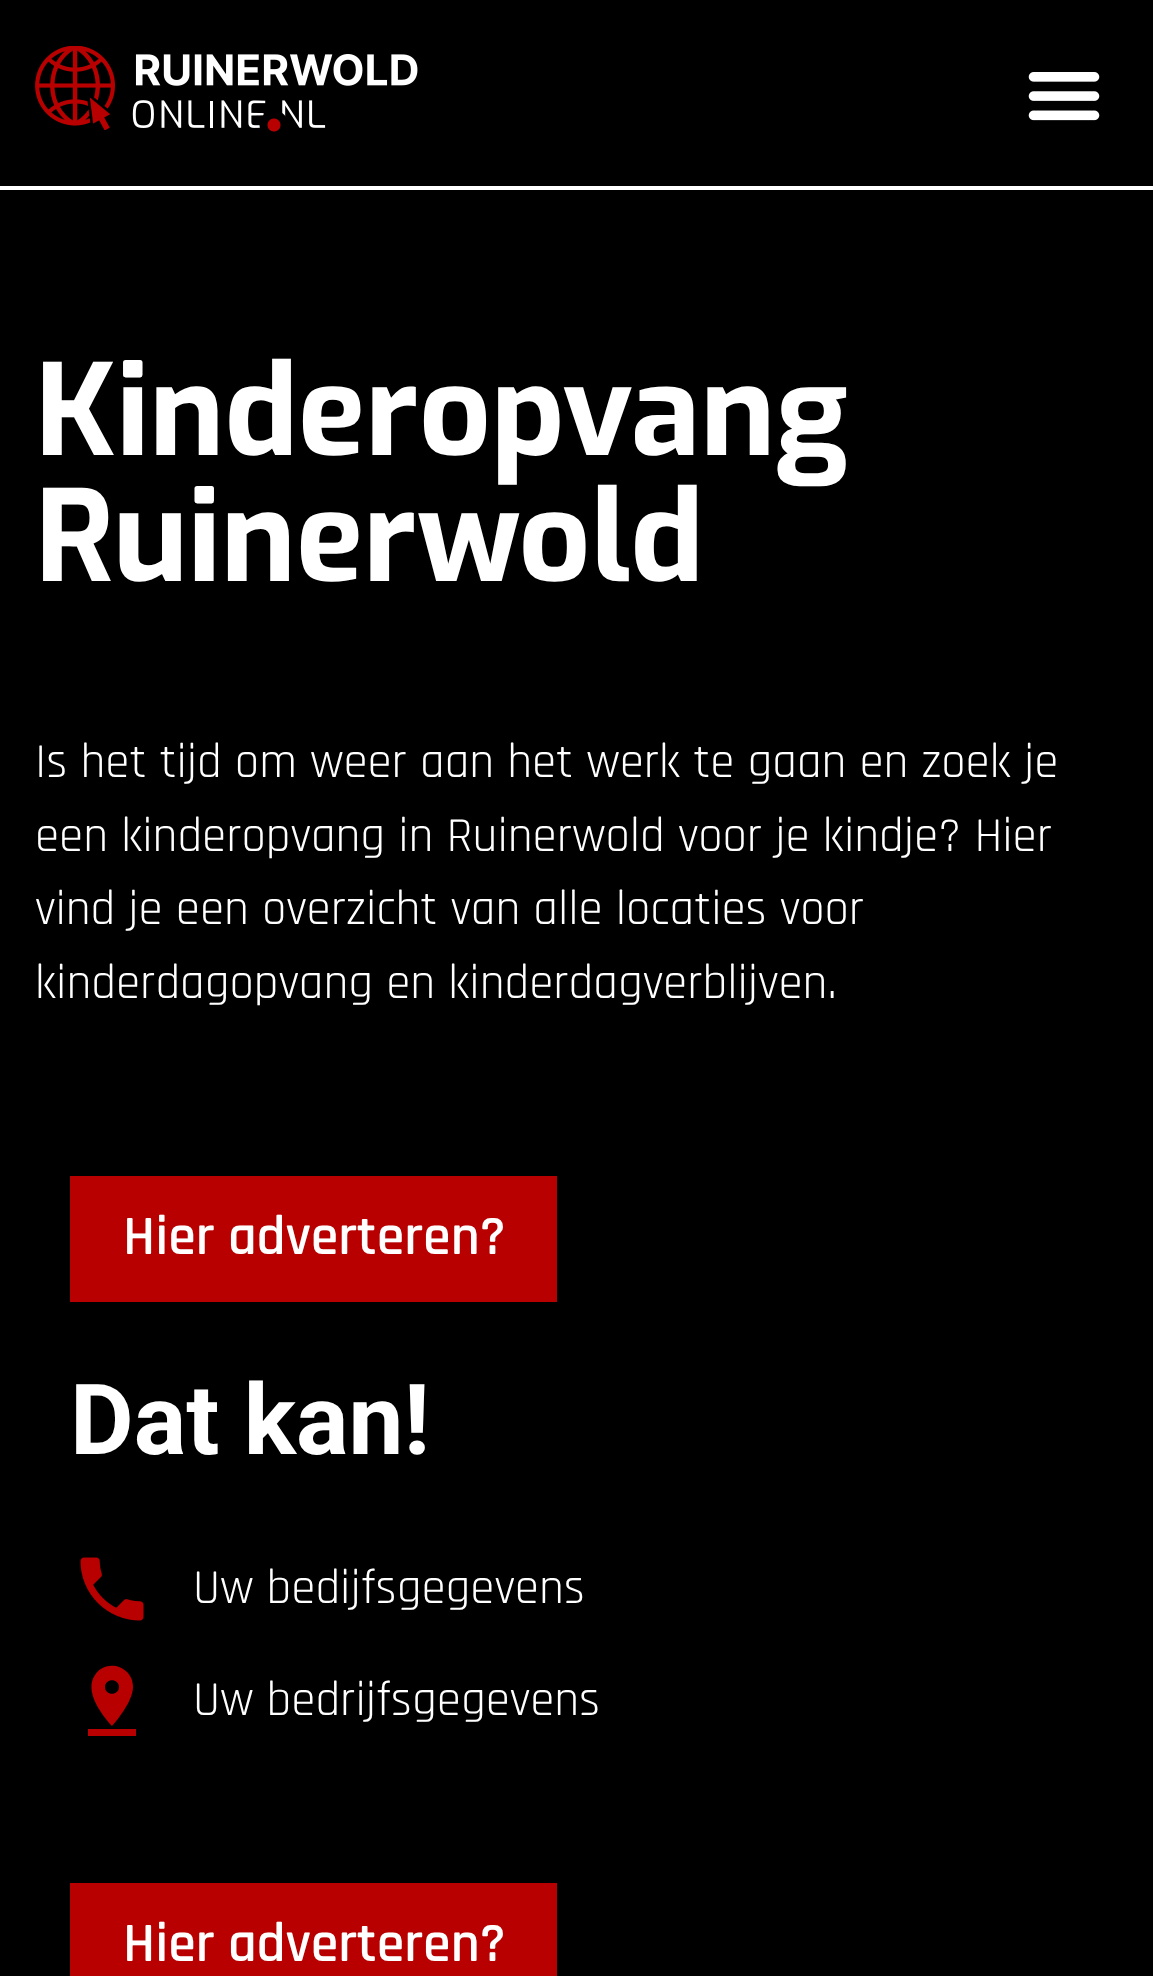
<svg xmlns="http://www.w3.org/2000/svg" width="1153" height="1976">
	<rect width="100%" height="100%" fill="#000000" />
	<rect x="0" y="186" width="1153" height="4" fill="#FFFFFF" />
	<image x="35" y="46" width="383" height="86" href="assets/img1.png" />
	<image x="1028" y="72" width="72" height="49" href="assets/img2.png" />
	<g font-family="Exo" font-size="126" font-weight="700" fill="#FFFFFF">
		<text x="35" y="455">Kinderopvang</text>
		<text x="35" y="581">Ruinerwold</text>
	</g>
	<g font-family="Rajdhani" font-size="49" fill="#FFFFFF">
		<text x="35" y="777">Is het tijd om weer aan het werk te gaan en zoek je</text>
		<text x="35" y="851">een kinderopvang in Ruinerwold voor je kindje? Hier</text>
		<text x="35" y="924">vind je een overzicht van alle locaties voor</text>
		<text x="35" y="998">kinderdagopvang en kinderdagverblijven.</text>
	</g>
	<rect x="70" y="1176" width="487" height="126" fill="#B80000" />
	<text x="123" y="1254" font-family="Rajdhani" font-size="56" font-weight="600" fill="#FFFFFF">Hier adverteren?</text>
	<text x="70" y="1454" font-family="Roboto" font-size="98" font-weight="700" fill="#FFFFFF">Dat kan!</text>
	<image x="80" y="1557" width="64" height="64" href="assets/img3.png" />
	<text x="193" y="1603" font-family="Rajdhani" font-size="49" fill="#FFFFFF">Uw bedijfsgegevens</text>
	<path d="M133 1687C133 1666 106 1658 95 1675C84 1691 101 1714 112 1726C112 1726 133 1703 133 1687ZM105 1687C105 1678 119 1678 119 1687C119 1696 105 1696 105 1687ZM88 1729V1736H136V1729Z" fill="#B80000" />
	<text x="193" y="1715" font-family="Rajdhani" font-size="49" fill="#FFFFFF">Uw bedrijfsgegevens</text>
	<rect x="70" y="1883" width="487" height="93" fill="#B80000" />
	<text x="123" y="1961" font-family="Rajdhani" font-size="56" font-weight="600" fill="#FFFFFF">Hier adverteren?</text>
</svg>
